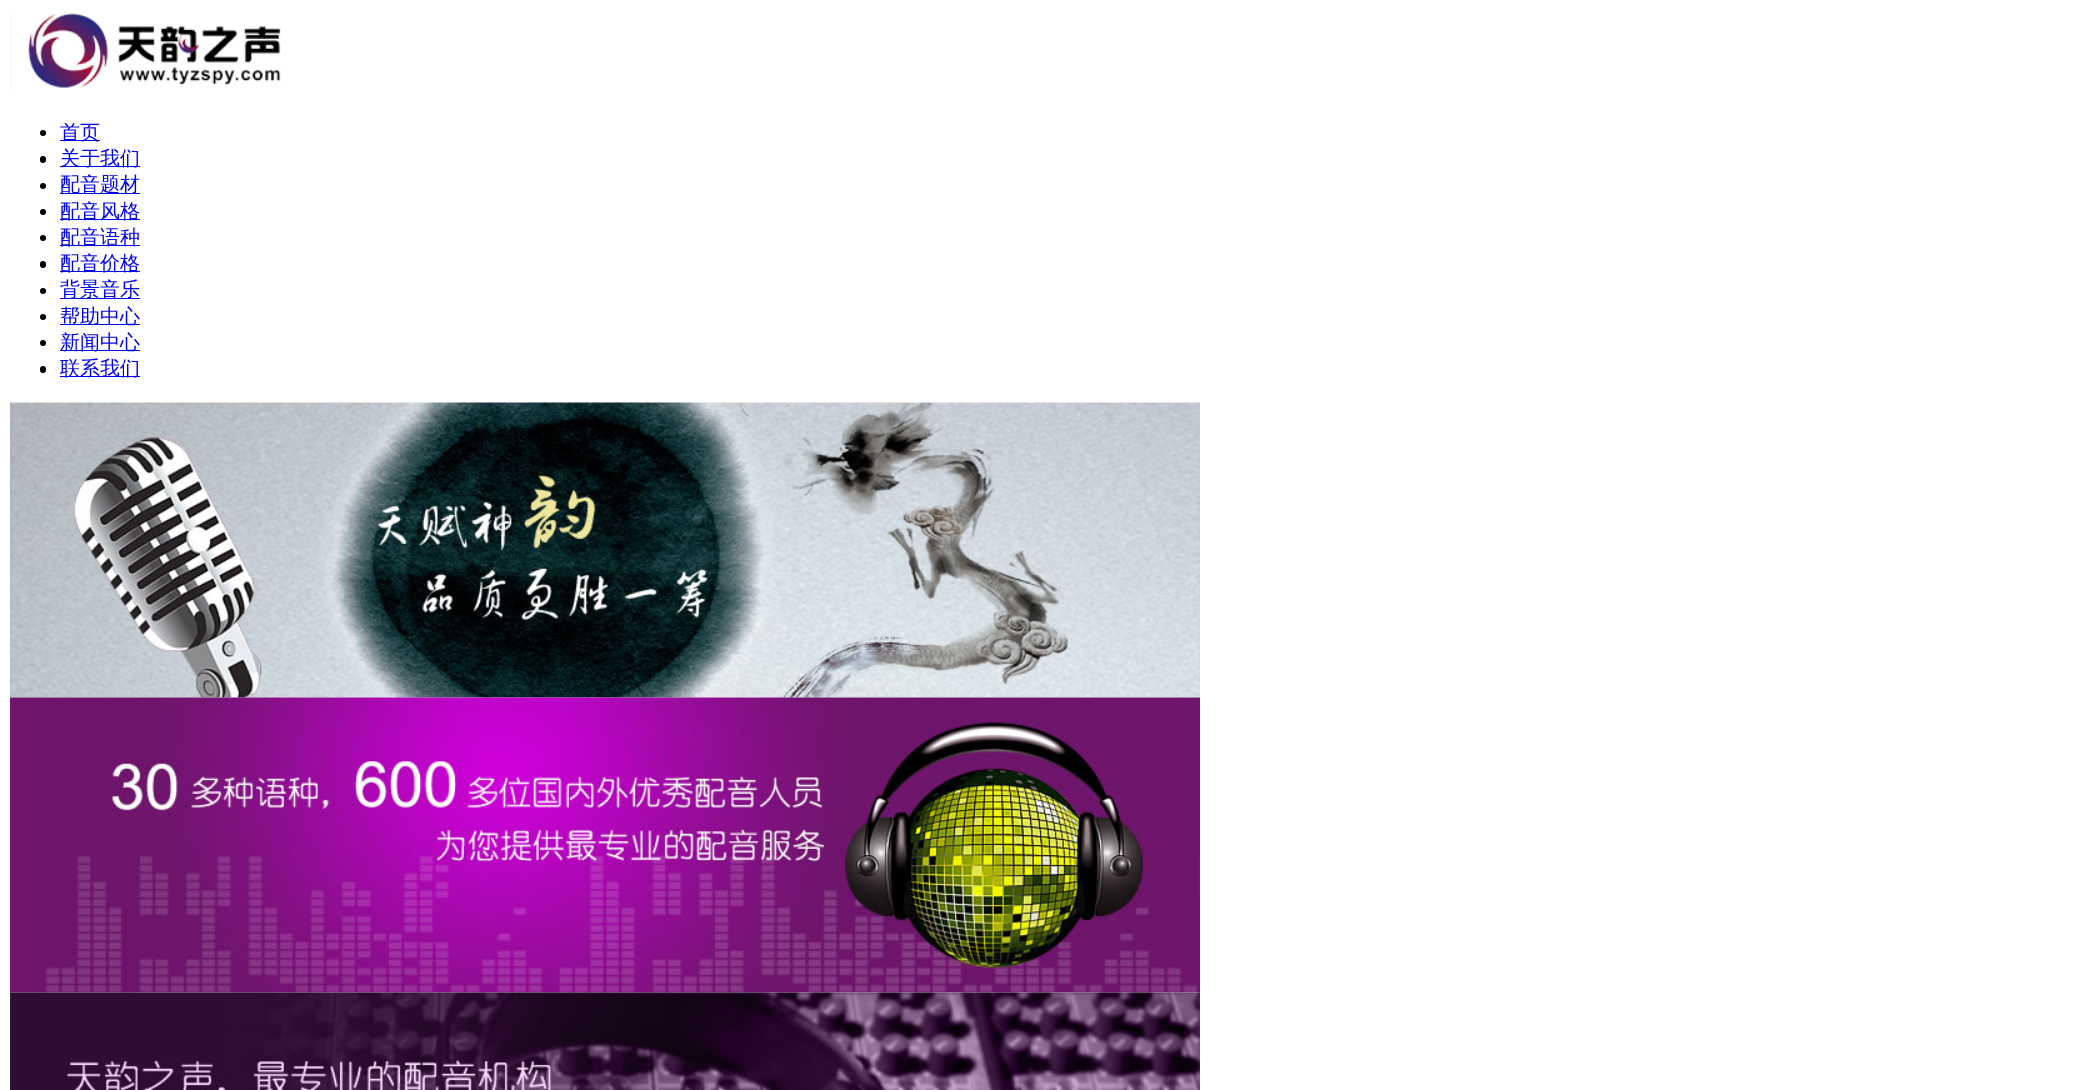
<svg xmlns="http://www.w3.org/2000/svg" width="2097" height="1090">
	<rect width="100%" height="100%" fill="#FFFFFF" />
	<image x="10" y="10" width="271" height="82" href="assets/img1.png" />
	<circle cx="43" cy="133" r="3" fill="#000000" />
	<rect x="60" y="140" width="40" height="1" fill="#0000EE" />
	<text x="60" y="139" font-family="WenQuanYi Zen Hei" font-size="20" font-weight="500" fill="#0000EE">首页</text>
	<rect x="40" y="156" width="6" height="7" rx="3" fill="#000000" />
	<rect x="60" y="166" width="80" height="1" fill="#0000EE" />
	<text x="60" y="165" font-family="WenQuanYi Zen Hei" font-size="20" font-weight="500" fill="#0000EE">关于我们</text>
	<circle cx="43" cy="186" r="3" fill="#000000" />
	<rect x="60" y="193" width="80" height="1" fill="#0000EE" />
	<text x="60" y="191" font-family="WenQuanYi Zen Hei" font-size="20" font-weight="500" fill="#0000EE">配音题材</text>
	<circle cx="43" cy="212" r="3" fill="#000000" />
	<rect x="60" y="219" width="80" height="1" fill="#0000EE" />
	<text x="60" y="218" font-family="WenQuanYi Zen Hei" font-size="20" font-weight="500" fill="#0000EE">配音风格</text>
	<circle cx="43" cy="238" r="3" fill="#000000" />
	<rect x="60" y="245" width="80" height="1" fill="#0000EE" />
	<text x="60" y="244" font-family="WenQuanYi Zen Hei" font-size="20" font-weight="500" fill="#0000EE">配音语种</text>
	<rect x="40" y="261" width="6" height="7" rx="3" fill="#000000" />
	<rect x="60" y="271" width="80" height="1" fill="#0000EE" />
	<text x="60" y="270" font-family="WenQuanYi Zen Hei" font-size="20" font-weight="500" fill="#0000EE">配音价格</text>
	<circle cx="43" cy="291" r="3" fill="#000000" />
	<rect x="60" y="298" width="80" height="1" fill="#0000EE" />
	<text x="60" y="296" font-family="WenQuanYi Zen Hei" font-size="20" font-weight="500" fill="#0000EE">背景音乐</text>
	<circle cx="43" cy="317" r="3" fill="#000000" />
	<rect x="60" y="324" width="80" height="1" fill="#0000EE" />
	<text x="60" y="323" font-family="WenQuanYi Zen Hei" font-size="20" font-weight="500" fill="#0000EE">帮助中心</text>
	<circle cx="43" cy="343" r="3" fill="#000000" />
	<rect x="60" y="350" width="80" height="1" fill="#0000EE" />
	<text x="60" y="349" font-family="WenQuanYi Zen Hei" font-size="20" font-weight="500" fill="#0000EE">新闻中心</text>
	<rect x="40" y="366" width="6" height="7" rx="3" fill="#000000" />
	<rect x="60" y="376" width="80" height="1" fill="#0000EE" />
	<text x="60" y="375" font-family="WenQuanYi Zen Hei" font-size="20" font-weight="500" fill="#0000EE">联系我们</text>
	<image x="10" y="402" width="1190" height="296" href="assets/img2.png" />
	<image x="10" y="697" width="1190" height="296" href="assets/img3.png" />
	<image x="10" y="992" width="1190" height="98" href="assets/img4.png" />
</svg>
